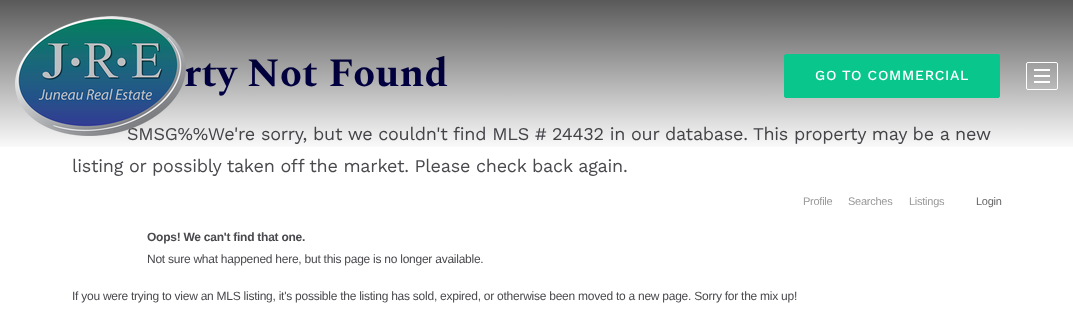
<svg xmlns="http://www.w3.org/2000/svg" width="1073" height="314">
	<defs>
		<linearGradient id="g1" gradientUnits="userSpaceOnUse" x1="537" y1="0" x2="537" y2="152"><stop offset="0" stop-color="#000000" stop-opacity="0.65" /><stop offset="1" stop-color="#000000" stop-opacity="0" /></linearGradient>
	</defs>
	<rect width="100%" height="100%" fill="#FFFFFF" />
	<text x="184" y="86" font-family="Spectral" font-size="40" font-weight="700" letter-spacing="0.4" fill="#02005B">rty Not Found</text>
	<g font-family="Work Sans" font-size="18" letter-spacing="-0.25" fill="#49494E">
		<text x="127" y="140">SMSG%%We're sorry, but we couldn't find MLS # 24432 in our database. This property may be a new</text>
		<text x="72" y="172">listing or possibly taken off the market. Please check back again.</text>
	</g>
	<g font-family="Liberation Sans" font-size="11" letter-spacing="-0.25" fill="#999999">
		<text x="803" y="205">Profile</text>
		<text x="848" y="205">Searches</text>
		<text x="909" y="205">Listings</text>
	</g>
	<text x="976" y="205" font-family="Liberation Sans" font-size="11" letter-spacing="-0.25" fill="#666666">Login</text>
	<text x="147" y="241" font-family="Liberation Sans" font-size="12" font-weight="700" letter-spacing="-0.25" fill="#49494E">Oops! We can't find that one.</text>
	<g font-family="Liberation Sans" font-size="12" letter-spacing="-0.25" fill="#49494E">
		<text x="147" y="263">Not sure what happened here, but this page is no longer available.</text>
		<text x="72" y="300">If you were trying to view an MLS listing, it's possible the listing has sold, expired, or otherwise been moved to a new page. Sorry for the mix up!</text>
	</g>
	<rect x="0" y="0" width="1073" height="147" fill="url(#g1)" />
	<image x="15" y="16" width="171" height="120" href="assets/img1.png" />
	<rect x="784.5" y="54.5" width="215" height="43" rx="1.5" fill="#08C68C" stroke="#08C68C" />
	<text x="815" y="80" font-family="Work Sans" font-size="14" font-weight="500" letter-spacing="0.75" fill="#FFFFFF">GO TO COMMERCIAL</text>
	<rect x="1026.5" y="62.5" width="31" height="27" rx="1.5" fill="none" stroke="#FFFFFF" />
	<rect x="1034" y="69" width="16" height="2" fill="#FFFFFF" />
	<rect x="1034" y="75" width="16" height="2" fill="#FFFFFF" />
	<rect x="1034" y="81" width="16" height="2" fill="#FFFFFF" />
</svg>
